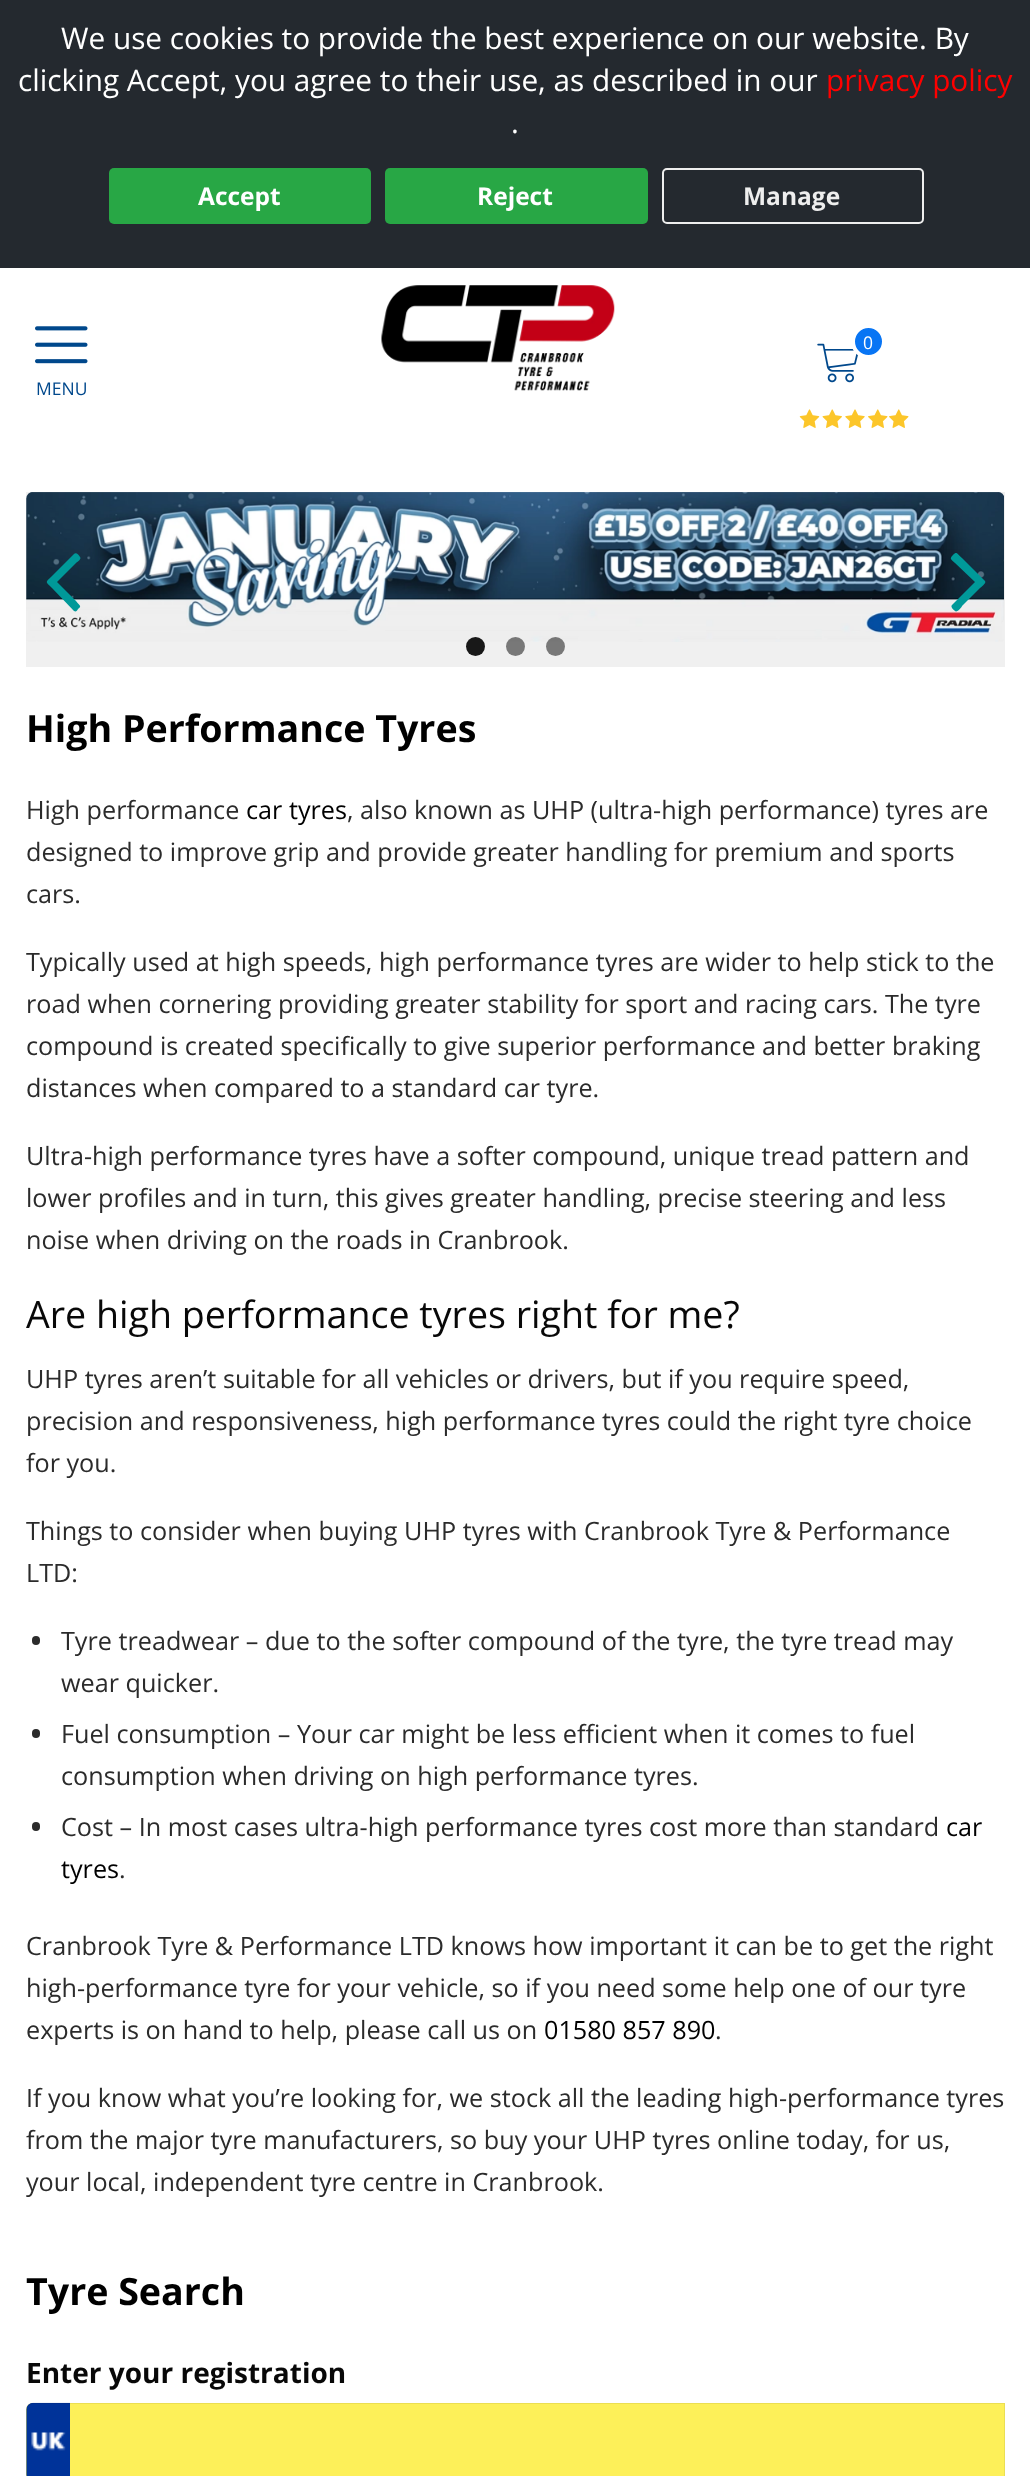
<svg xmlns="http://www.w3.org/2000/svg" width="1030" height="2476">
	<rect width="100%" height="100%" fill="#FFFFFF" />
	<rect x="0" y="0" width="1030" height="268" fill="#24292F" />
	<g font-family="Open Sans" font-size="29.75" fill="#FFFFFF">
		<text x="61" y="49">We use cookies to provide the best experience on our website. By</text>
		<text x="18" y="91">clicking Accept, you agree to their use, as described in our</text>
	</g>
	<text x="826" y="91" font-family="Open Sans" font-size="29.75" fill="#FF0000">privacy policy</text>
	<text x="511" y="133" font-family="Open Sans" font-size="29.75" fill="#FFFFFF">.</text>
	<rect x="109" y="168" width="262" height="56" rx="5" fill="#28A745" />
	<text x="198" y="205" font-family="Open Sans" font-size="24.5" font-weight="700" fill="#FFFFFF">Accept</text>
	<rect x="385" y="168" width="263" height="56" rx="5" fill="#28A745" />
	<text x="477" y="205" font-family="Open Sans" font-size="24.5" font-weight="700" fill="#FFFFFF">Reject</text>
	<rect x="663" y="169" width="260" height="54" rx="4" fill="none" stroke="#EEEEEE" stroke-width="2" />
	<text x="743" y="205" font-family="Open Sans" font-size="24.5" font-weight="700" fill="#EEEEEE">Manage</text>
	<image x="381" y="285" width="234" height="106" href="assets/img1.png" />
	<image x="799" y="409" width="21" height="19" href="assets/img2.png" />
	<image x="822" y="409" width="20" height="19" href="assets/img3.png" />
	<image x="845" y="409" width="20" height="19" href="assets/img4.png" />
	<image x="868" y="409" width="20" height="19" href="assets/img5.png" />
	<image x="889" y="409" width="20" height="19" href="assets/img5.png" />
	<image x="817" y="343" width="41" height="40" href="assets/img6.png" />
	<circle cx="868.5" cy="341.5" r="15.5" fill="#0875F4" stroke="#FFFFFF" stroke-width="4" />
	<text x="863" y="349" font-family="Open Sans" font-size="17.5" fill="#FFFFFF">0</text>
	<image x="35" y="326" width="53" height="38" href="assets/img7.png" />
	<text x="36" y="395" font-family="Open Sans" font-size="17.5" fill="#00488C">MENU</text>
	<rect x="26" y="492" width="979" height="175" fill="#F0F0F0" />
	<image x="26" y="492" width="978" height="150" href="assets/img8.png" />
	<path d="M80 557C82 559 77 562 76 563L57 582L76 601C80 606 82 606 78 609C77 611 76 612 74 611L52 588C45 581 45 583 52 576L74 554C76 552 79 555 80 557Z" fill="#009999" />
	<path d="M985 581C987 583 980 588 980 588L962 606C962 607 957 613 955 611C954 610 950 607 952 605L975 582L955 563C951 559 949 559 953 555C957 551 957 554 962 558Z" fill="#009999" />
	<circle cx="475.5" cy="646.5" r="9.5" fill="#000000" fill-opacity="0.9" />
	<circle cx="515.5" cy="646.5" r="9.5" fill="#000000" fill-opacity="0.5" />
	<circle cx="555.5" cy="646.5" r="9.5" fill="#000000" fill-opacity="0.5" />
	<text x="26" y="742" font-family="Open Sans" font-size="37.6" font-weight="700" fill="#000000">High Performance Tyres</text>
	<text x="26" y="819" font-family="Open Sans" font-size="25.2" fill="#2B2B2B">High performance</text>
	<text x="246" y="819" font-family="Open Sans" font-size="25.2" fill="#000000">car tyres</text>
	<g font-family="Open Sans" font-size="25.2" fill="#2B2B2B">
		<text x="347" y="819">, also known as UHP (ultra-high performance) tyres are</text>
		<text x="26" y="861">designed to improve grip and provide greater handling for premium and sports</text>
		<text x="26" y="903">cars.</text>
		<text x="26" y="971">Typically used at high speeds, high performance tyres are wider to help stick to the</text>
		<text x="26" y="1013">road when cornering providing greater stability for sport and racing cars. The tyre</text>
		<text x="26" y="1055">compound is created specifically to give superior performance and better braking</text>
		<text x="26" y="1097">distances when compared to a standard car tyre.</text>
		<text x="26" y="1165">Ultra-high performance tyres have a softer compound, unique tread pattern and</text>
		<text x="26" y="1207">lower profiles and in turn, this gives greater handling, precise steering and less</text>
		<text x="26" y="1249">noise when driving on the roads in Cranbrook.</text>
	</g>
	<text x="26" y="1328" font-family="Open Sans" font-size="37.6" fill="#080808">Are high performance tyres right for me?</text>
	<g font-family="Open Sans" font-size="25.2" fill="#2B2B2B">
		<text x="26" y="1388">UHP tyres aren’t suitable for all vehicles or drivers, but if you require speed,</text>
		<text x="26" y="1430">precision and responsiveness, high performance tyres could the right tyre choice</text>
		<text x="26" y="1472">for you.</text>
		<text x="26" y="1540">Things to consider when buying UHP tyres with Cranbrook Tyre &amp; Performance</text>
		<text x="26" y="1582">LTD:</text>
	</g>
	<rect x="32" y="1636" width="8" height="9" rx="4" fill="#2B2B2B" />
	<g font-family="Open Sans" font-size="25.2" fill="#2B2B2B">
		<text x="61" y="1650">Tyre treadwear – due to the softer compound of the tyre, the tyre tread may</text>
		<text x="61" y="1692">wear quicker.</text>
	</g>
	<rect x="32" y="1729" width="8" height="9" rx="4" fill="#2B2B2B" />
	<g font-family="Open Sans" font-size="25.2" fill="#2B2B2B">
		<text x="61" y="1743">Fuel consumption – Your car might be less efficient when it comes to fuel</text>
		<text x="61" y="1785">consumption when driving on high performance tyres.</text>
	</g>
	<rect x="32" y="1822" width="8" height="9" rx="4" fill="#2B2B2B" />
	<text x="61" y="1836" font-family="Open Sans" font-size="25.2" fill="#2B2B2B">Cost – In most cases ultra-high performance tyres cost more than standard</text>
	<g font-family="Open Sans" font-size="25.2" fill="#000000">
		<text x="946" y="1836">car</text>
		<text x="61" y="1878">tyres</text>
	</g>
	<g font-family="Open Sans" font-size="25.2" fill="#2B2B2B">
		<text x="119" y="1878">.</text>
		<text x="26" y="1955">Cranbrook Tyre &amp; Performance LTD knows how important it can be to get the right</text>
		<text x="26" y="1997">high-performance tyre for your vehicle, so if you need some help one of our tyre</text>
		<text x="26" y="2039">experts is on hand to help, please call us on</text>
	</g>
	<text x="544" y="2039" font-family="Open Sans" font-size="25.2" fill="#000000">01580 857 890</text>
	<g font-family="Open Sans" font-size="25.2" fill="#2B2B2B">
		<text x="715" y="2039">.</text>
		<text x="26" y="2107">If you know what you’re looking for, we stock all the leading high-performance tyres</text>
		<text x="26" y="2149">from the major tyre manufacturers, so buy your UHP tyres online today, for us,</text>
		<text x="26" y="2191">your local, independent tyre centre in Cranbrook.</text>
	</g>
	<text x="26" y="2305" font-family="Open Sans" font-size="37.6" font-weight="700" fill="#000000">Tyre Search</text>
	<text x="26" y="2383" font-family="Open Sans" font-size="28" font-weight="700" fill="#080808">Enter your registration</text>
	<path d="M33 2403H1005V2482H33C29 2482 26 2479 26 2475V2410C26 2406 29 2403 33 2403Z" fill="#FDF059" />
	<image x="26" y="2402" width="44" height="74" href="assets/img9.png" />
	<path d="M33 2404H1004V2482H1005V2403H33C28 2403 26 2408 26 2412C26 2408 29 2404 33 2404Z" fill="#000000" fill-opacity="0.07" />
</svg>
